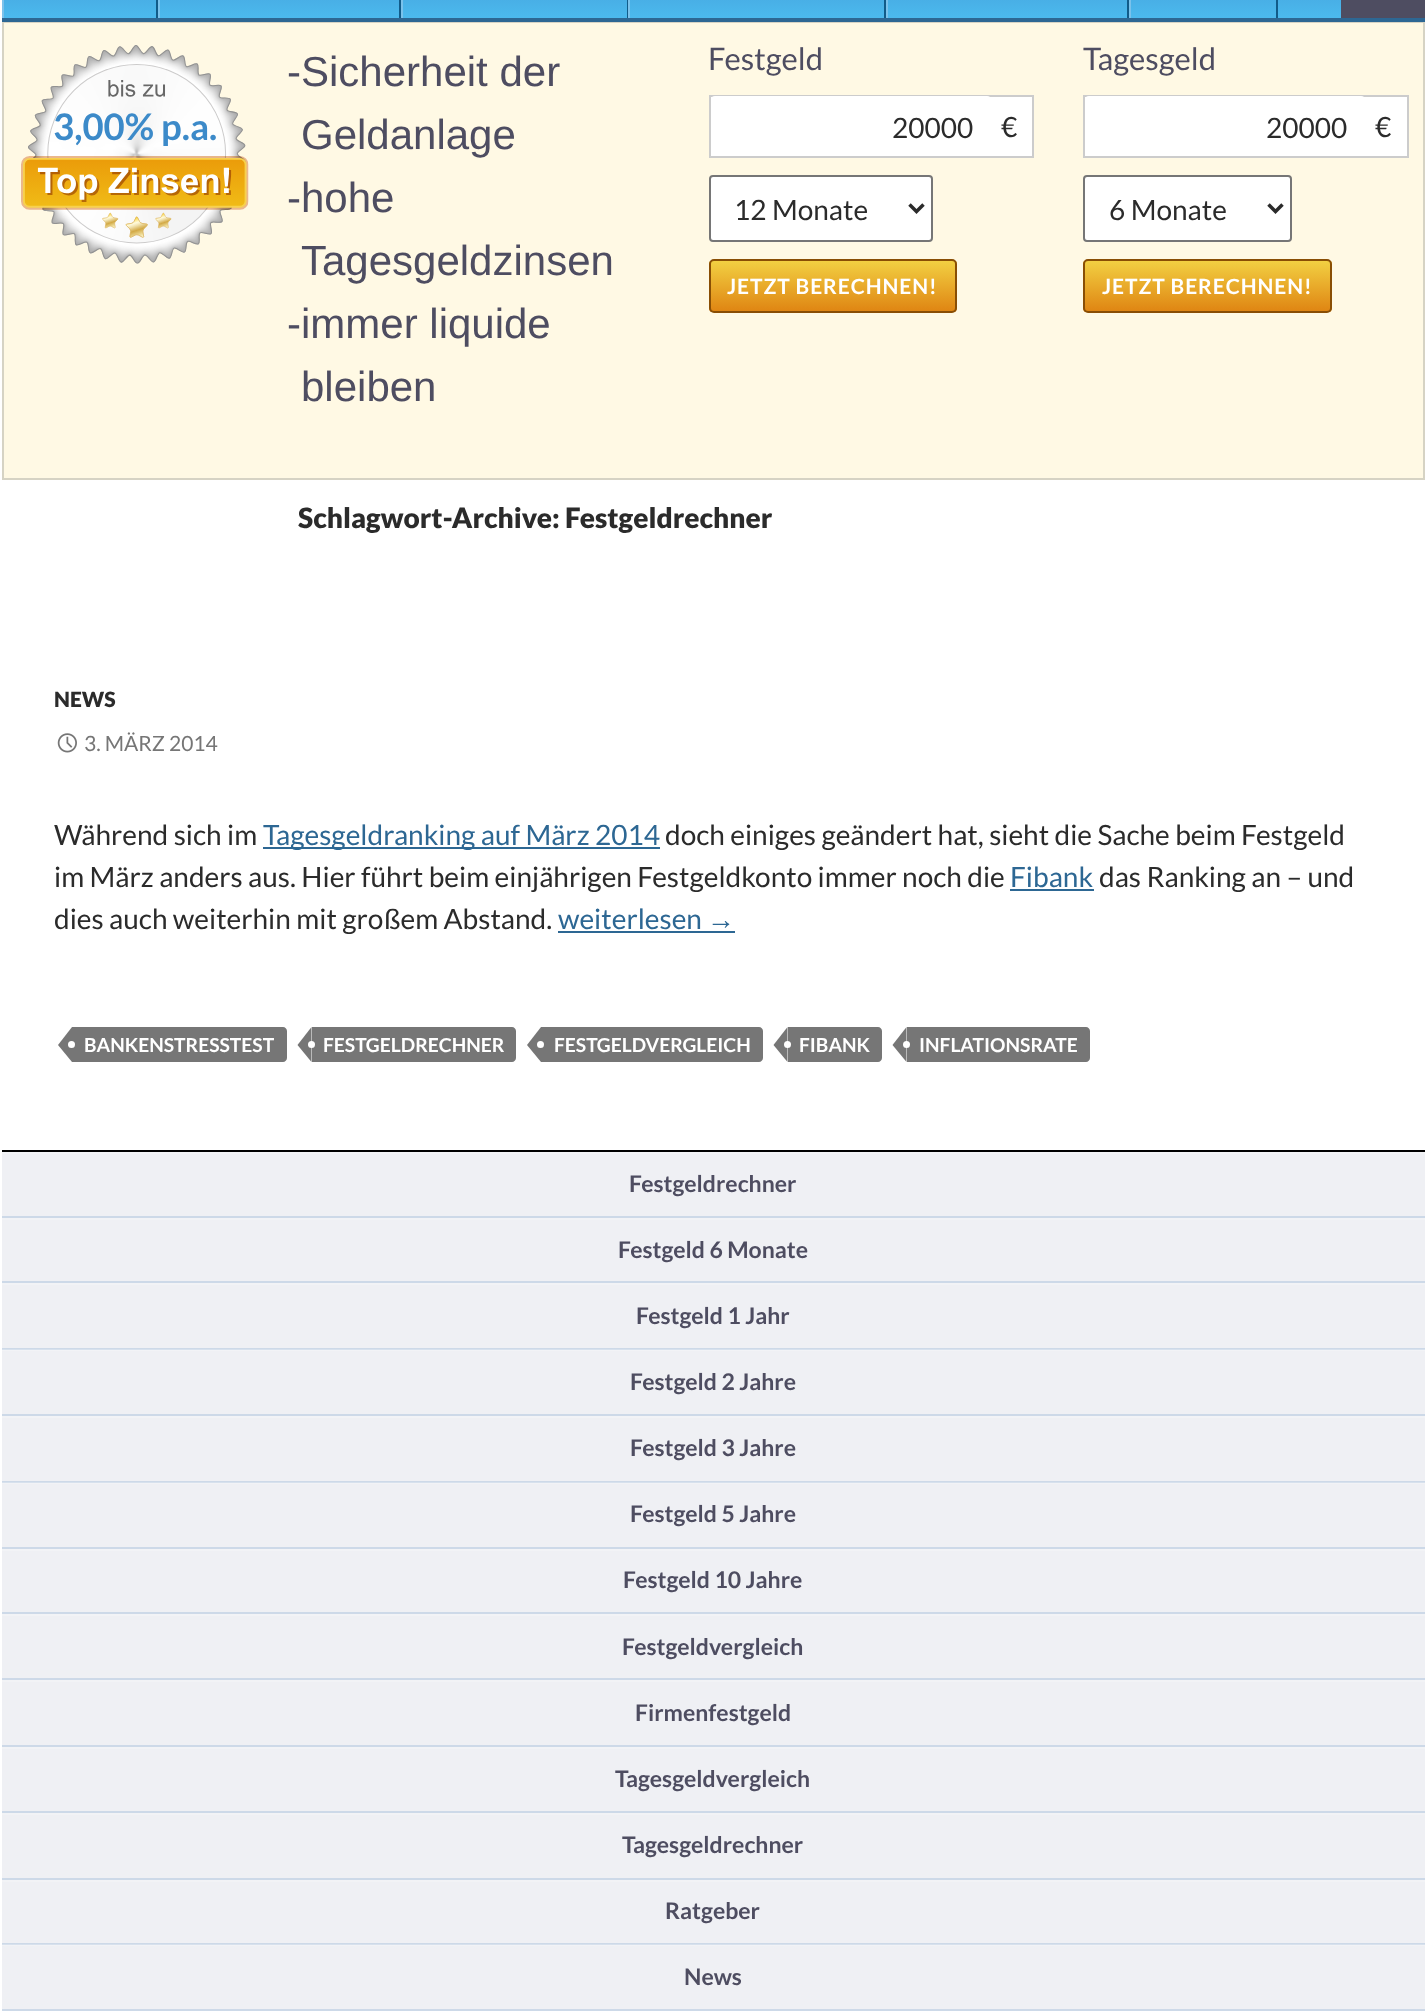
<svg xmlns="http://www.w3.org/2000/svg" width="1425" height="2011">
	<defs>
		<linearGradient id="g1" gradientUnits="userSpaceOnUse" x1="713" y1="-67" x2="713" y2="21"><stop offset="0" stop-color="#3C8AC9" /><stop offset="1" stop-color="#4CBBEF" /></linearGradient>
		<clipPath id="clip1"><rect x="709" y="259" width="248" height="54" rx="5" /></clipPath>
		<linearGradient id="g2" gradientUnits="userSpaceOnUse" x1="833" y1="261" x2="833" y2="312"><stop offset="0" stop-color="#F2D042" /><stop offset="1" stop-color="#DF8412" /></linearGradient>
		<clipPath id="clip2"><rect x="1083" y="259" width="249" height="54" rx="5" /></clipPath>
		<linearGradient id="g3" gradientUnits="userSpaceOnUse" x1="1208" y1="261" x2="1208" y2="312"><stop offset="0" stop-color="#F2D042" /><stop offset="1" stop-color="#DF8412" /></linearGradient>
	</defs>
	<rect width="100%" height="100%" fill="#FFFFFF" />
	<rect x="4" y="0" width="1337" height="18" fill="url(#g1)" />
	<rect x="3" y="22" width="1421" height="457" fill="#FFF9E4" stroke="#D6D3C4" stroke-width="2" />
	<rect x="2" y="18" width="1423" height="4" fill="#2D6793" />
	<rect x="156" y="0" width="2" height="18" fill="#115B89" />
	<rect x="2" y="0" width="2" height="18" fill="#7BC2EB" />
	<rect x="399" y="0" width="2" height="18" fill="#115B89" />
	<rect x="158" y="0" width="2" height="18" fill="#7BC2EB" />
	<rect x="627" y="0" width="1" height="18" fill="#115B89" />
	<rect x="401" y="0" width="2" height="18" fill="#7BC2EB" />
	<rect x="884" y="0" width="2" height="18" fill="#115B89" />
	<rect x="628" y="0" width="2" height="18" fill="#7BC2EB" />
	<rect x="1127" y="0" width="2" height="18" fill="#115B89" />
	<rect x="886" y="0" width="2" height="18" fill="#7BC2EB" />
	<rect x="1276" y="0" width="2" height="18" fill="#115B89" />
	<rect x="1129" y="0" width="2" height="18" fill="#7BC2EB" />
	<rect x="1341" y="0" width="84" height="18" fill="#4E4D61" />
	<image x="21" y="45" width="228" height="219" href="assets/img1.png" />
	<text x="53" y="140" font-family="Lato" font-size="36.5" font-weight="700" fill="#3C8AC9">3,00% p.a.</text>
	<g font-family="Liberation Sans" font-size="42" fill="#4E4D61">
		<text x="287" y="86">-Sicherheit der</text>
		<text x="301" y="149">Geldanlage</text>
		<text x="287" y="212">-hohe</text>
		<text x="301" y="275">Tagesgeldzinsen</text>
		<text x="287" y="338">-immer liquide</text>
		<text x="301" y="401">bleiben</text>
	</g>
	<text x="708" y="70" font-family="Lato" font-size="31" fill="#4E4D61">Festgeld</text>
	<rect x="710" y="96" width="323" height="61" fill="#FFFFFF" stroke="#CCCCCC" stroke-width="2" />
	<rect x="711" y="96" width="280" height="60" rx="4" fill="#FFFFFF" />
	<g font-family="Lato" font-size="28" fill="#2B2B2B">
		<text x="892" y="138">20000</text>
		<text x="1001" y="137">€</text>
	</g>
	<rect x="710" y="176" width="222" height="65" rx="3" fill="#FFFFFF" stroke="#767676" stroke-width="2" />
	<path d="M909.5 204.5L916.5 211.5L923.5 204.5" fill="none" stroke="#2B2B2B" stroke-width="3.5" />
	<text x="734" y="220" font-family="Lato" font-size="28" fill="#2B2B2B">12 Monate</text>
	<g clip-path="url(#clip1)">
		<rect x="709" y="261" width="248" height="51" fill="url(#g2)" />
	</g>
	<rect x="710" y="260" width="246" height="52" rx="4" fill="none" stroke="#894E04" stroke-width="2" />
	<text x="727" y="294" font-family="Lato" font-size="21" font-weight="700" letter-spacing="0.9" fill="#FFFFFF">JETZT BERECHNEN!</text>
	<text x="1083" y="70" font-family="Lato" font-size="31" fill="#4E4D61">Tagesgeld</text>
	<rect x="1084" y="96" width="324" height="61" fill="#FFFFFF" stroke="#CCCCCC" stroke-width="2" />
	<rect x="1085" y="96" width="280" height="60" rx="4" fill="#FFFFFF" />
	<g font-family="Lato" font-size="28" fill="#2B2B2B">
		<text x="1266" y="138">20000</text>
		<text x="1375" y="137">€</text>
	</g>
	<rect x="1084" y="176" width="207" height="65" rx="3" fill="#FFFFFF" stroke="#767676" stroke-width="2" />
	<path d="M1268.5 204.5L1275.5 211.5L1282.5 204.5" fill="none" stroke="#2B2B2B" stroke-width="3.5" />
	<text x="1109" y="220" font-family="Lato" font-size="28" fill="#2B2B2B">6 Monate</text>
	<g clip-path="url(#clip2)">
		<rect x="1083" y="261" width="249" height="51" fill="url(#g3)" />
	</g>
	<rect x="1084" y="260" width="247" height="52" rx="4" fill="none" stroke="#894E04" stroke-width="2" />
	<text x="1102" y="294" font-family="Lato" font-size="21" font-weight="700" letter-spacing="0.9" fill="#FFFFFF">JETZT BERECHNEN!</text>
	<text x="298" y="528" font-family="Lato" font-size="28" font-weight="900" fill="#2B2B2B">Schlagwort-Archive: Festgeldrechner</text>
	<text x="54" y="707" font-family="Lato" font-size="21" font-weight="900" fill="#2B2B2B">NEWS</text>
	<image x="57" y="733" width="20" height="20" href="assets/img2.png" />
	<text x="84" y="751" font-family="Lato" font-size="21" fill="#767676">3. MÄRZ 2014</text>
	<text x="54" y="845" font-family="Lato" font-size="28" fill="#2B2B2B">Während sich im</text>
	<rect x="263" y="847" width="397" height="2" fill="#2D6793" />
	<text x="263" y="845" font-family="Lato" font-size="28" fill="#2D6793">Tagesgeldranking auf März 2014</text>
	<g font-family="Lato" font-size="28" fill="#2B2B2B">
		<text x="665" y="845">doch einiges geändert hat, sieht die Sache beim Festgeld</text>
		<text x="54" y="887">im März anders aus. Hier führt beim einjährigen Festgeldkonto immer noch die</text>
	</g>
	<text x="1010" y="887" font-family="Lato" font-size="28" fill="#2D6793">Fibank</text>
	<rect x="1010" y="889" width="84" height="2" fill="#2D6793" />
	<g font-family="Lato" font-size="28" fill="#2B2B2B">
		<text x="1099" y="887">das Ranking an – und</text>
		<text x="54" y="929">dies auch weiterhin mit großem Abstand.</text>
	</g>
	<text x="558" y="929" font-family="Lato" font-size="28" fill="#2D6793">weiterlesen</text>
	<text x="707" y="929" font-family="Liberation Sans" font-size="28" fill="#2D6793">→</text>
	<rect x="558" y="931" width="177" height="2" fill="#2D6793" />
	<path d="M72 1027H283C285 1027 287 1029 287 1031V1058C287 1060 285 1062 283 1062H72Z" fill="#767676" />
	<path d="M72 1027V1062L58 1045Z" fill="#767676" />
	<text x="84" y="1052" font-family="Lato" font-size="19.25" font-weight="700" fill="#FFFFFF">BANKENSTRESSTEST</text>
	<circle cx="71.5" cy="1044.5" r="3.5" fill="#FFFFFF" />
	<path d="M312 1027H512C514 1027 516 1029 516 1031V1058C516 1060 514 1062 512 1062H312Z" fill="#767676" />
	<path d="M311.5 1027V1062L297.5 1045Z" fill="#767676" />
	<text x="323" y="1052" font-family="Lato" font-size="19.25" font-weight="700" fill="#FFFFFF">FESTGELDRECHNER</text>
	<circle cx="311.5" cy="1044.5" r="3.5" fill="#FFFFFF" />
	<path d="M541 1027H759C761 1027 763 1029 763 1031V1058C763 1060 761 1062 759 1062H541Z" fill="#767676" />
	<path d="M541 1027V1062L527 1045Z" fill="#767676" />
	<text x="554" y="1052" font-family="Lato" font-size="19.25" font-weight="700" fill="#FFFFFF">FESTGELDVERGLEICH</text>
	<circle cx="540.5" cy="1044.5" r="3.5" fill="#FFFFFF" />
	<path d="M788 1027H878C880 1027 882 1029 882 1031V1058C882 1060 880 1062 878 1062H788Z" fill="#767676" />
	<path d="M787.5 1027V1062L773.5 1045Z" fill="#767676" />
	<text x="799" y="1052" font-family="Lato" font-size="19.25" font-weight="700" fill="#FFFFFF">FIBANK</text>
	<circle cx="787.5" cy="1044.5" r="3.5" fill="#FFFFFF" />
	<path d="M907 1027H1086C1088 1027 1090 1029 1090 1031V1058C1090 1060 1088 1062 1086 1062H907Z" fill="#767676" />
	<path d="M906.5 1027V1062L892.5 1045Z" fill="#767676" />
	<text x="919" y="1052" font-family="Lato" font-size="19.25" font-weight="700" fill="#FFFFFF">INFLATIONSRATE</text>
	<circle cx="906.5" cy="1044.5" r="3.5" fill="#FFFFFF" />
	<rect x="2" y="1154" width="1423" height="855" fill="#EFF0F4" />
	<rect x="2" y="1945" width="1423" height="1" fill="#F2F3F6" />
	<rect x="2" y="1483" width="1423" height="1" fill="#F2F3F6" />
	<rect x="2" y="1350" width="1423" height="1" fill="#F2F3F6" />
	<rect x="2" y="1150" width="1423" height="2" fill="#000000" />
	<rect x="2" y="1152" width="1423" height="2" fill="#F2F3F6" />
	<rect x="2" y="1216" width="1423" height="2" fill="#CDD9E8" />
	<text x="629" y="1192" font-family="Lato" font-size="23" font-weight="700" fill="#4E4D61">Festgeldrechner</text>
	<rect x="2" y="1218" width="1423" height="2" fill="#F2F3F6" />
	<rect x="2" y="1281" width="1423" height="2" fill="#CDD9E8" />
	<text x="618" y="1258" font-family="Lato" font-size="23" font-weight="700" fill="#4E4D61">Festgeld 6 Monate</text>
	<rect x="2" y="1283" width="1423" height="2" fill="#F2F3F6" />
	<rect x="2" y="1348" width="1423" height="1" fill="#CDD9E8" />
	<rect x="2" y="1349" width="1423" height="1" fill="#D7E1ED" />
	<text x="636" y="1324" font-family="Lato" font-size="23" font-weight="700" fill="#4E4D61">Festgeld 1 Jahr</text>
	<rect x="2" y="1414" width="1423" height="2" fill="#CDD9E8" />
	<text x="630" y="1390" font-family="Lato" font-size="23" font-weight="700" fill="#4E4D61">Festgeld 2 Jahre</text>
	<rect x="2" y="1416" width="1423" height="2" fill="#F2F3F6" />
	<rect x="2" y="1481" width="1423" height="1" fill="#CDD9E8" />
	<rect x="2" y="1482" width="1423" height="1" fill="#D7E1ED" />
	<text x="630" y="1456" font-family="Lato" font-size="23" font-weight="700" fill="#4E4D61">Festgeld 3 Jahre</text>
	<rect x="2" y="1547" width="1423" height="2" fill="#CDD9E8" />
	<text x="630" y="1522" font-family="Lato" font-size="23" font-weight="700" fill="#4E4D61">Festgeld 5 Jahre</text>
	<rect x="2" y="1549" width="1423" height="2" fill="#F2F3F6" />
	<rect x="2" y="1612" width="1423" height="2" fill="#CDD9E8" />
	<text x="623" y="1588" font-family="Lato" font-size="23" font-weight="700" fill="#4E4D61">Festgeld 10 Jahre</text>
	<rect x="2" y="1614" width="1423" height="2" fill="#F2F3F6" />
	<rect x="2" y="1678" width="1423" height="2" fill="#CDD9E8" />
	<text x="622" y="1655" font-family="Lato" font-size="23" font-weight="700" fill="#4E4D61">Festgeldvergleich</text>
	<rect x="2" y="1680" width="1423" height="2" fill="#F2F3F6" />
	<rect x="2" y="1745" width="1423" height="2" fill="#CDD9E8" />
	<text x="635" y="1721" font-family="Lato" font-size="23" font-weight="700" fill="#4E4D61">Firmenfestgeld</text>
	<rect x="2" y="1747" width="1423" height="2" fill="#F2F3F6" />
	<rect x="2" y="1811" width="1423" height="2" fill="#CDD9E8" />
	<text x="615" y="1787" font-family="Lato" font-size="23" font-weight="700" fill="#4E4D61">Tagesgeldvergleich</text>
	<rect x="2" y="1813" width="1423" height="2" fill="#F2F3F6" />
	<rect x="2" y="1878" width="1423" height="2" fill="#CDD9E8" />
	<text x="622" y="1853" font-family="Lato" font-size="23" font-weight="700" fill="#4E4D61">Tagesgeldrechner</text>
	<rect x="2" y="1880" width="1423" height="2" fill="#F2F3F6" />
	<rect x="2" y="1943" width="1423" height="1" fill="#CDD9E8" />
	<rect x="2" y="1944" width="1423" height="1" fill="#D7E1ED" />
	<text x="665" y="1919" font-family="Lato" font-size="23" font-weight="700" fill="#4E4D61">Ratgeber</text>
	<rect x="2" y="2009" width="1423" height="2" fill="#CDD9E8" />
	<text x="684" y="1985" font-family="Lato" font-size="23" font-weight="700" fill="#4E4D61">News</text>
</svg>
